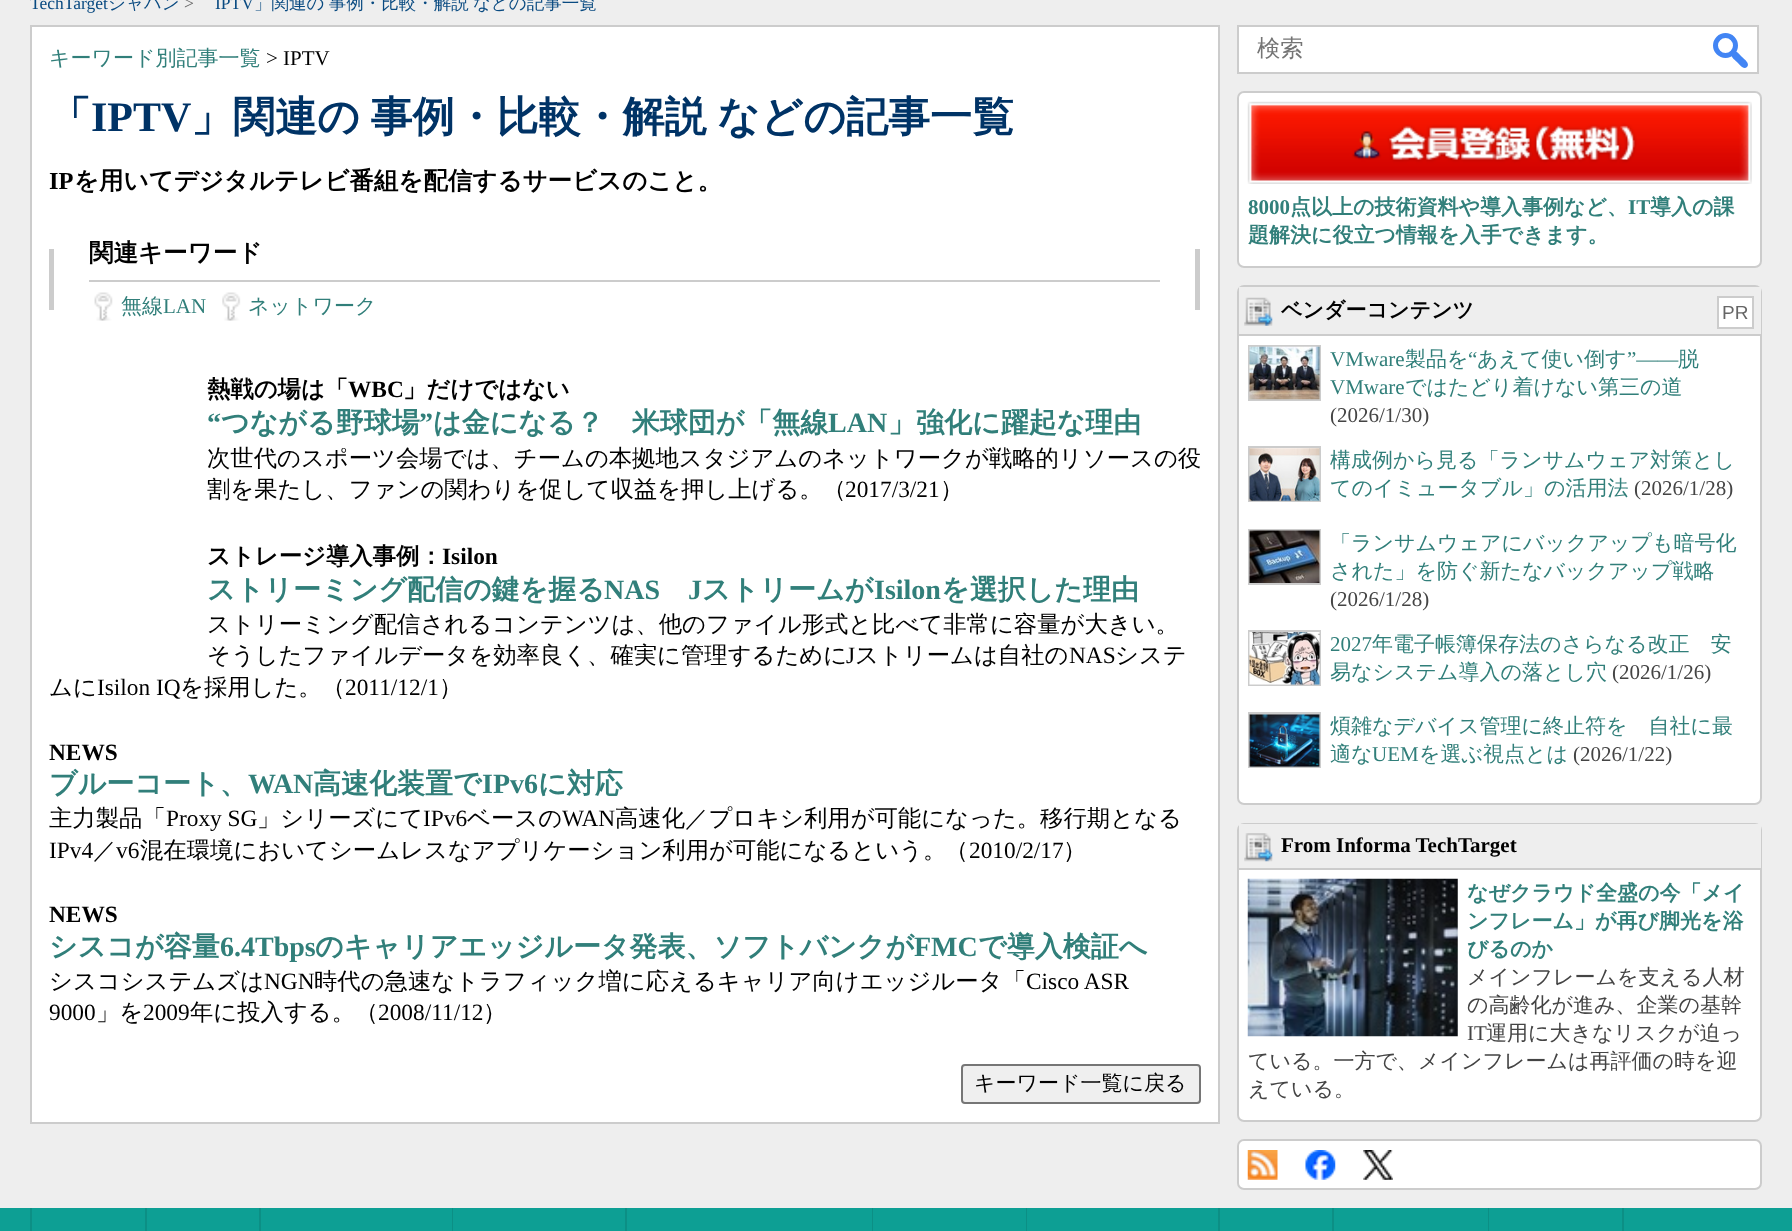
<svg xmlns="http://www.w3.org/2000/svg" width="1792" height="1231">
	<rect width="100%" height="100%" fill="#EEEEEE" />
	<text x="30" y="9" font-family="Liberation Serif" font-size="17.5" fill="#094A81">TechTarget</text>
	<text x="108" y="9" font-family="WenQuanYi Zen Hei" font-size="17.5" font-weight="500" fill="#094A81">ジャパン</text>
	<text x="184" y="9" font-family="Liberation Serif" font-size="17.5" fill="#666666">&gt;</text>
	<text x="215" y="9" font-family="Liberation Serif" font-size="17.5" fill="#094A81">IPTV</text>
	<text x="254" y="9" word-spacing="-1" font-family="WenQuanYi Zen Hei" font-size="17.5" font-weight="500" fill="#094A81">」関連の 事例・比較・解説 などの記事一覧</text>
	<rect x="31" y="26" width="1188" height="1097" fill="#FFFFFF" stroke="#CCCCCC" stroke-width="2" />
	<text x="49" y="65" font-family="WenQuanYi Zen Hei" font-size="21" font-weight="500" fill="#317F7A">キーワード別記事一覧</text>
	<text x="266" y="65" font-family="Liberation Serif" font-size="21" fill="#000000">&gt; IPTV</text>
	<text x="49" y="131" font-family="WenQuanYi Zen Hei" font-size="42" font-weight="700" fill="#003366">「</text>
	<text x="91" y="131" font-family="Liberation Serif" font-size="42" font-weight="700" fill="#003366">IPTV</text>
	<text x="191" y="131" word-spacing="-2" font-family="WenQuanYi Zen Hei" font-size="42" font-weight="700" fill="#003366">」関連の 事例・比較・解説 などの記事一覧</text>
	<text x="49" y="189" font-family="Liberation Serif" font-size="24.5" font-weight="700" fill="#000000">IP</text>
	<text x="74" y="189" font-family="WenQuanYi Zen Hei" font-size="24.5" font-weight="700" fill="#000000">を用いてデジタルテレビ番組を配信するサービスのこと。</text>
	<rect x="1195" y="249" width="5" height="61" fill="#CCCCCC" />
	<rect x="49" y="249" width="5" height="61" fill="#CCCCCC" />
	<rect x="89" y="280" width="1071" height="2" fill="#CCCCCC" />
	<text x="89" y="261" font-family="WenQuanYi Zen Hei" font-size="24.5" font-weight="700" fill="#000000">関連キーワード</text>
	<image x="94" y="292" width="19" height="29" href="assets/img1.png" />
	<text x="121" y="313" font-family="WenQuanYi Zen Hei" font-size="21" font-weight="500" fill="#317F7A">無線</text>
	<text x="163" y="313" font-family="Liberation Serif" font-size="21" fill="#317F7A">LAN</text>
	<image x="222" y="292" width="19" height="29" href="assets/img2.png" />
	<text x="248" y="313" font-family="WenQuanYi Zen Hei" font-size="21" font-weight="500" fill="#317F7A">ネットワーク</text>
	<text x="207" y="397" font-family="WenQuanYi Zen Hei" font-size="23.35" font-weight="700" fill="#000000">熱戦の場は「</text>
	<text x="348" y="397" font-family="Liberation Serif" font-size="23.35" font-weight="700" fill="#000000">WBC</text>
	<text x="403" y="397" font-family="WenQuanYi Zen Hei" font-size="23.35" font-weight="700" fill="#000000">」だけではない</text>
	<text x="207" y="432" font-family="Liberation Serif" font-size="28" font-weight="700" fill="#317F7A">“</text>
	<text x="221" y="432" font-family="WenQuanYi Zen Hei" font-size="28" font-weight="700" fill="#317F7A">つながる野球場</text>
	<text x="419" y="432" font-family="Liberation Serif" font-size="28" font-weight="700" fill="#317F7A">”</text>
	<text x="433" y="432" font-family="WenQuanYi Zen Hei" font-size="28" font-weight="700" fill="#317F7A">は金になる？　米球団が「無線</text>
	<text x="828" y="432" font-family="Liberation Serif" font-size="28" font-weight="700" fill="#317F7A">LAN</text>
	<text x="888" y="432" font-family="WenQuanYi Zen Hei" font-size="28" font-weight="700" fill="#317F7A">」強化に躍起な理由</text>
	<g font-family="WenQuanYi Zen Hei" font-size="23.35" font-weight="500" fill="#000000">
		<text x="207" y="466">次世代のスポーツ会場では、チームの本拠地スタジアムのネットワークが戦略的リソースの役</text>
		<text x="207" y="497">割を果たし、ファンの関わりを促して収益を押し上げる。（</text>
	</g>
	<text x="845" y="497" font-family="Liberation Serif" font-size="23.35" fill="#000000">2017/3/21</text>
	<text x="940" y="497" font-family="WenQuanYi Zen Hei" font-size="23.35" font-weight="500" fill="#000000">）</text>
	<text x="207" y="564" font-family="WenQuanYi Zen Hei" font-size="23.35" font-weight="700" fill="#000000">ストレージ導入事例：</text>
	<text x="442" y="564" font-family="Liberation Serif" font-size="23.35" font-weight="700" fill="#000000">Isilon</text>
	<text x="207" y="599" font-family="WenQuanYi Zen Hei" font-size="28" font-weight="700" fill="#317F7A">ストリーミング配信の鍵を握る</text>
	<g font-family="Liberation Serif" font-size="28" font-weight="700" fill="#317F7A">
		<text x="604" y="599">NAS</text>
		<text x="688" y="599">J</text>
	</g>
	<text x="702" y="599" font-family="WenQuanYi Zen Hei" font-size="28" font-weight="700" fill="#317F7A">ストリームが</text>
	<text x="874" y="599" font-family="Liberation Serif" font-size="28" font-weight="700" fill="#317F7A">Isilon</text>
	<text x="941" y="599" font-family="WenQuanYi Zen Hei" font-size="28" font-weight="700" fill="#317F7A">を選択した理由</text>
	<g font-family="WenQuanYi Zen Hei" font-size="23.35" font-weight="500" fill="#000000">
		<text x="207" y="632">ストリーミング配信されるコンテンツは、他のファイル形式と比べて非常に容量が大きい。</text>
		<text x="207" y="663">そうしたファイルデータを効率良く、確実に管理するために</text>
	</g>
	<text x="846" y="663" font-family="Liberation Serif" font-size="23.35" fill="#000000">J</text>
	<text x="855" y="663" font-family="WenQuanYi Zen Hei" font-size="23.35" font-weight="500" fill="#000000">ストリームは自社の</text>
	<text x="1069" y="663" font-family="Liberation Serif" font-size="23.35" fill="#000000">NAS</text>
	<g font-family="WenQuanYi Zen Hei" font-size="23.35" font-weight="500" fill="#000000">
		<text x="1115" y="663">システ</text>
		<text x="49" y="695">ムに</text>
	</g>
	<text x="97" y="695" font-family="Liberation Serif" font-size="23.35" fill="#000000">Isilon IQ</text>
	<text x="180" y="695" font-family="WenQuanYi Zen Hei" font-size="23.35" font-weight="500" fill="#000000">を採用した。（</text>
	<text x="345" y="695" font-family="Liberation Serif" font-size="23.35" fill="#000000">2011/12/1</text>
	<text x="439" y="695" font-family="WenQuanYi Zen Hei" font-size="23.35" font-weight="500" fill="#000000">）</text>
	<text x="49" y="760" font-family="Liberation Serif" font-size="23.35" font-weight="700" fill="#000000">NEWS</text>
	<text x="49" y="793" font-family="WenQuanYi Zen Hei" font-size="28" font-weight="700" fill="#317F7A">ブルーコート、</text>
	<text x="248" y="793" font-family="Liberation Serif" font-size="28" font-weight="700" fill="#317F7A">WAN</text>
	<text x="313" y="793" font-family="WenQuanYi Zen Hei" font-size="28" font-weight="700" fill="#317F7A">高速化装置で</text>
	<text x="482" y="793" font-family="Liberation Serif" font-size="28" font-weight="700" fill="#317F7A">IPv6</text>
	<text x="538" y="793" font-family="WenQuanYi Zen Hei" font-size="28" font-weight="700" fill="#317F7A">に対応</text>
	<text x="49" y="826" font-family="WenQuanYi Zen Hei" font-size="23.35" font-weight="500" fill="#000000">主力製品「</text>
	<text x="166" y="826" font-family="Liberation Serif" font-size="23.35" fill="#000000">Proxy SG</text>
	<text x="257" y="826" font-family="WenQuanYi Zen Hei" font-size="23.35" font-weight="500" fill="#000000">」シリーズにて</text>
	<text x="423" y="826" font-family="Liberation Serif" font-size="23.35" fill="#000000">IPv6</text>
	<text x="467" y="826" font-family="WenQuanYi Zen Hei" font-size="23.35" font-weight="500" fill="#000000">ベースの</text>
	<text x="562" y="826" font-family="Liberation Serif" font-size="23.35" fill="#000000">WAN</text>
	<text x="615" y="826" font-family="WenQuanYi Zen Hei" font-size="23.35" font-weight="500" fill="#000000">高速化／プロキシ利用が可能になった。移行期となる</text>
	<text x="49" y="858" font-family="Liberation Serif" font-size="23.35" fill="#000000">IPv4</text>
	<text x="93" y="858" font-family="WenQuanYi Zen Hei" font-size="23.35" font-weight="500" fill="#000000">／</text>
	<text x="116" y="858" font-family="Liberation Serif" font-size="23.35" fill="#000000">v6</text>
	<g font-family="WenQuanYi Zen Hei" font-size="23.35" font-weight="500" fill="#000000">
		<text x="140" y="858">混在環境においてシームレスなアプリケーション利用が可能になるという。</text>
		<text x="945" y="858">（</text>
	</g>
	<text x="969" y="858" font-family="Liberation Serif" font-size="23.35" fill="#000000">2010/2/17</text>
	<text x="1063" y="858" font-family="WenQuanYi Zen Hei" font-size="23.35" font-weight="500" fill="#000000">）</text>
	<text x="49" y="922" font-family="Liberation Serif" font-size="23.35" font-weight="700" fill="#000000">NEWS</text>
	<text x="49" y="956" font-family="WenQuanYi Zen Hei" font-size="28" font-weight="700" fill="#317F7A">シスコが容量</text>
	<text x="220" y="956" font-family="Liberation Serif" font-size="28" font-weight="700" fill="#317F7A">6.4Tbps</text>
	<text x="315" y="956" font-family="WenQuanYi Zen Hei" font-size="28" font-weight="700" fill="#317F7A">のキャリアエッジルータ発表、ソフトバンクが</text>
	<text x="914" y="956" font-family="Liberation Serif" font-size="28" font-weight="700" fill="#317F7A">FMC</text>
	<text x="978" y="956" font-family="WenQuanYi Zen Hei" font-size="28" font-weight="700" fill="#317F7A">で導入検証へ</text>
	<text x="49" y="989" font-family="WenQuanYi Zen Hei" font-size="23.35" font-weight="500" fill="#000000">シスコシステムズは</text>
	<text x="264" y="989" font-family="Liberation Serif" font-size="23.35" fill="#000000">NGN</text>
	<text x="314" y="989" font-family="WenQuanYi Zen Hei" font-size="23.35" font-weight="500" fill="#000000">時代の急速なトラフィック増に応えるキャリア向けエッジルータ「</text>
	<g font-family="Liberation Serif" font-size="23.35" fill="#000000">
		<text x="1026" y="989">Cisco ASR</text>
		<text x="49" y="1020">9000</text>
	</g>
	<text x="96" y="1020" font-family="WenQuanYi Zen Hei" font-size="23.35" font-weight="500" fill="#000000">」を</text>
	<text x="143" y="1020" font-family="Liberation Serif" font-size="23.35" fill="#000000">2009</text>
	<text x="190" y="1020" font-family="WenQuanYi Zen Hei" font-size="23.35" font-weight="500" fill="#000000">年に投入する。（</text>
	<text x="378" y="1020" font-family="Liberation Serif" font-size="23.35" fill="#000000">2008/11/12</text>
	<text x="483" y="1020" font-family="WenQuanYi Zen Hei" font-size="23.35" font-weight="500" fill="#000000">）</text>
	<rect x="962" y="1065" width="238" height="38" rx="3" fill="#EFEFEF" stroke="#767676" stroke-width="2" />
	<text x="974" y="1090" font-family="WenQuanYi Zen Hei" font-size="21" font-weight="500" fill="#000000">キーワード一覧に戻る</text>
	<rect x="1238" y="26" width="520" height="47" fill="#FFFFFF" stroke="#CCCCCC" stroke-width="2" />
	<text x="1257" y="56" font-family="WenQuanYi Zen Hei" font-size="23.35" font-weight="500" fill="#757575">検索</text>
	<circle cx="1725.5" cy="45.5" r="10" fill="none" stroke="#4285F4" stroke-width="5" />
	<path d="M1732 52C1735.5 48.5 1740 55 1742 57C1744 59 1750.5 63.5 1747 67C1743.5 70.5 1739 64 1737 62C1735 60 1728.5 55.5 1732 52Z" fill="#4285F4" />
	<rect x="1238" y="92" width="523" height="175" rx="6" fill="#FFFFFF" stroke="#CCCCCC" stroke-width="2" />
	<image x="1247" y="101" width="505" height="83" href="assets/img3.png" />
	<text x="1248" y="214" font-family="Liberation Serif" font-size="21" font-weight="700" fill="#317F7A">8000</text>
	<text x="1290" y="214" font-family="WenQuanYi Zen Hei" font-size="21" font-weight="700" fill="#317F7A">点以上の技術資料や導入事例など、</text>
	<text x="1628" y="214" font-family="Liberation Serif" font-size="21" font-weight="700" fill="#317F7A">IT</text>
	<g font-family="WenQuanYi Zen Hei" font-size="21" font-weight="700" fill="#317F7A">
		<text x="1650" y="214">導入の課</text>
		<text x="1248" y="242">題解決に役立つ情報を入手できます。</text>
	</g>
	<rect x="1238" y="286" width="523" height="518" rx="6" fill="#FFFFFF" stroke="#CCCCCC" stroke-width="2" />
	<rect x="1239" y="287" width="522" height="47" fill="#EEEEEE" />
	<image x="1244" y="297" width="29" height="29" href="assets/img4.png" />
	<rect x="1239" y="334" width="522" height="2" fill="#CCCCCC" />
	<text x="1281" y="317" font-family="WenQuanYi Zen Hei" font-size="21" font-weight="700" fill="#000000">ベンダーコンテンツ</text>
	<rect x="1718" y="297" width="35" height="31" fill="#FFFFFF" stroke="#CCCCCC" stroke-width="2" />
	<text x="1722" y="319" font-family="Liberation Sans" font-size="19" fill="#666666">PR</text>
	<rect x="1249" y="346" width="71" height="54" fill="none" stroke="#CCCCCC" stroke-width="2" />
	<image x="1249" y="346" width="71" height="54" href="assets/img5.png" />
	<text x="1330" y="366" font-family="Liberation Serif" font-size="21" fill="#317F7A">VMware</text>
	<text x="1405" y="366" font-family="WenQuanYi Zen Hei" font-size="21" font-weight="500" fill="#317F7A">製品を</text>
	<text x="1468" y="366" font-family="Liberation Serif" font-size="21" fill="#317F7A">“</text>
	<text x="1477" y="366" font-family="WenQuanYi Zen Hei" font-size="21" font-weight="500" fill="#317F7A">あえて使い倒す</text>
	<text x="1627" y="366" font-family="Liberation Serif" font-size="21" fill="#317F7A">”――</text>
	<text x="1678" y="366" font-family="WenQuanYi Zen Hei" font-size="21" font-weight="500" fill="#317F7A">脱</text>
	<text x="1330" y="394" font-family="Liberation Serif" font-size="21" fill="#317F7A">VMware</text>
	<text x="1405" y="394" font-family="WenQuanYi Zen Hei" font-size="21" font-weight="500" fill="#317F7A">ではたどり着けない第三の道</text>
	<text x="1330" y="422" font-family="Liberation Serif" font-size="21" fill="#444444">(2026/1/30)</text>
	<rect x="1249" y="447" width="71" height="54" fill="none" stroke="#CCCCCC" stroke-width="2" />
	<image x="1249" y="448" width="71" height="53" href="assets/img6.png" />
	<g font-family="WenQuanYi Zen Hei" font-size="21" font-weight="500" fill="#317F7A">
		<text x="1330" y="467">構成例から見る「ランサムウェア対策とし</text>
		<text x="1330" y="495">てのイミュータブル」の活用法</text>
	</g>
	<text x="1634" y="495" font-family="Liberation Serif" font-size="21" fill="#444444">(2026/1/28)</text>
	<rect x="1249" y="530" width="71" height="54" fill="none" stroke="#CCCCCC" stroke-width="2" />
	<image x="1249" y="530" width="71" height="53" href="assets/img7.png" />
	<g font-family="WenQuanYi Zen Hei" font-size="21" font-weight="500" fill="#317F7A">
		<text x="1330" y="550">「ランサムウェアにバックアップも暗号化</text>
		<text x="1330" y="578">された」を防ぐ新たなバックアップ戦略</text>
	</g>
	<text x="1330" y="606" font-family="Liberation Serif" font-size="21" fill="#444444">(2026/1/28)</text>
	<rect x="1249" y="631" width="71" height="54" fill="none" stroke="#CCCCCC" stroke-width="2" />
	<image x="1249" y="632" width="71" height="53" href="assets/img8.png" />
	<text x="1330" y="651" font-family="Liberation Serif" font-size="21" fill="#317F7A">2027</text>
	<g font-family="WenQuanYi Zen Hei" font-size="21" font-weight="500" fill="#317F7A">
		<text x="1372" y="651">年電子帳簿保存法のさらなる改正　安</text>
		<text x="1330" y="679">易なシステム導入の落とし穴</text>
	</g>
	<text x="1612" y="679" font-family="Liberation Serif" font-size="21" fill="#444444">(2026/1/26)</text>
	<rect x="1249" y="713" width="71" height="54" fill="none" stroke="#CCCCCC" stroke-width="2" />
	<image x="1249" y="714" width="71" height="53" href="assets/img9.png" />
	<g font-family="WenQuanYi Zen Hei" font-size="21" font-weight="500" fill="#317F7A">
		<text x="1330" y="733">煩雑なデバイス管理に終止符を　自社に最</text>
		<text x="1330" y="761">適な</text>
	</g>
	<text x="1372" y="761" font-family="Liberation Serif" font-size="21" fill="#317F7A">UEM</text>
	<text x="1419" y="761" font-family="WenQuanYi Zen Hei" font-size="21" font-weight="500" fill="#317F7A">を選ぶ視点とは</text>
	<text x="1573" y="761" font-family="Liberation Serif" font-size="21" fill="#444444">(2026/1/22)</text>
	<rect x="1238" y="824" width="523" height="297" rx="6" fill="#FFFFFF" stroke="#CCCCCC" stroke-width="2" />
	<rect x="1239" y="824" width="522" height="44" fill="#EEEEEE" />
	<image x="1244" y="833" width="29" height="29" href="assets/img10.png" />
	<rect x="1239" y="868" width="522" height="2" fill="#CCCCCC" />
	<text x="1281" y="852" font-family="Liberation Serif" font-size="21" font-weight="700" fill="#000000">From Informa TechTarget</text>
	<image x="1247" y="878" width="211" height="159" href="assets/img11.png" />
	<g font-family="WenQuanYi Zen Hei" font-size="21" font-weight="700" fill="#317F7A">
		<text x="1467" y="900">なぜクラウド全盛の今「メイ</text>
		<text x="1467" y="928">ンフレーム」が再び脚光を浴</text>
		<text x="1467" y="956">びるのか</text>
	</g>
	<g font-family="WenQuanYi Zen Hei" font-size="21" font-weight="500" fill="#444444">
		<text x="1467" y="984">メインフレームを支える人材</text>
		<text x="1467" y="1012">の高齢化が進み、企業の基幹</text>
	</g>
	<text x="1467" y="1040" font-family="Liberation Serif" font-size="21" fill="#444444">IT</text>
	<g font-family="WenQuanYi Zen Hei" font-size="21" font-weight="500" fill="#444444">
		<text x="1486" y="1040">運用に大きなリスクが迫っ</text>
		<text x="1248" y="1068">ている。一方で、メインフレームは再評価の時を迎</text>
		<text x="1248" y="1096">えている。</text>
	</g>
	<rect x="1238" y="1140" width="523" height="49" rx="6" fill="#FFFFFF" stroke="#CCCCCC" stroke-width="2" />
	<image x="1247" y="1150" width="31" height="30" href="assets/img12.png" />
	<image x="1305" y="1150" width="31" height="30" href="assets/img13.png" />
	<image x="1363" y="1150" width="30" height="30" href="assets/img14.png" />
	<rect x="0" y="1208" width="1792" height="23" fill="#0D9F94" />
	<rect x="30" y="1208" width="2" height="23" fill="#0C8F85" />
	<rect x="145" y="1208" width="2" height="23" fill="#0C8F85" />
	<rect x="259" y="1208" width="2" height="23" fill="#0C8F85" />
	<rect x="452" y="1208" width="1" height="23" fill="#0C8F85" />
	<rect x="625" y="1208" width="2" height="23" fill="#0C8F85" />
	<rect x="872" y="1208" width="1" height="23" fill="#0C8F85" />
	<rect x="1026" y="1208" width="1" height="23" fill="#0C8F85" />
	<rect x="1218" y="1208" width="2" height="23" fill="#0C8F85" />
	<rect x="1332" y="1208" width="2" height="23" fill="#0C8F85" />
	<rect x="1488" y="1208" width="1" height="23" fill="#0C8F85" />
	<rect x="1622" y="1208" width="2" height="23" fill="#0C8F85" />
</svg>
